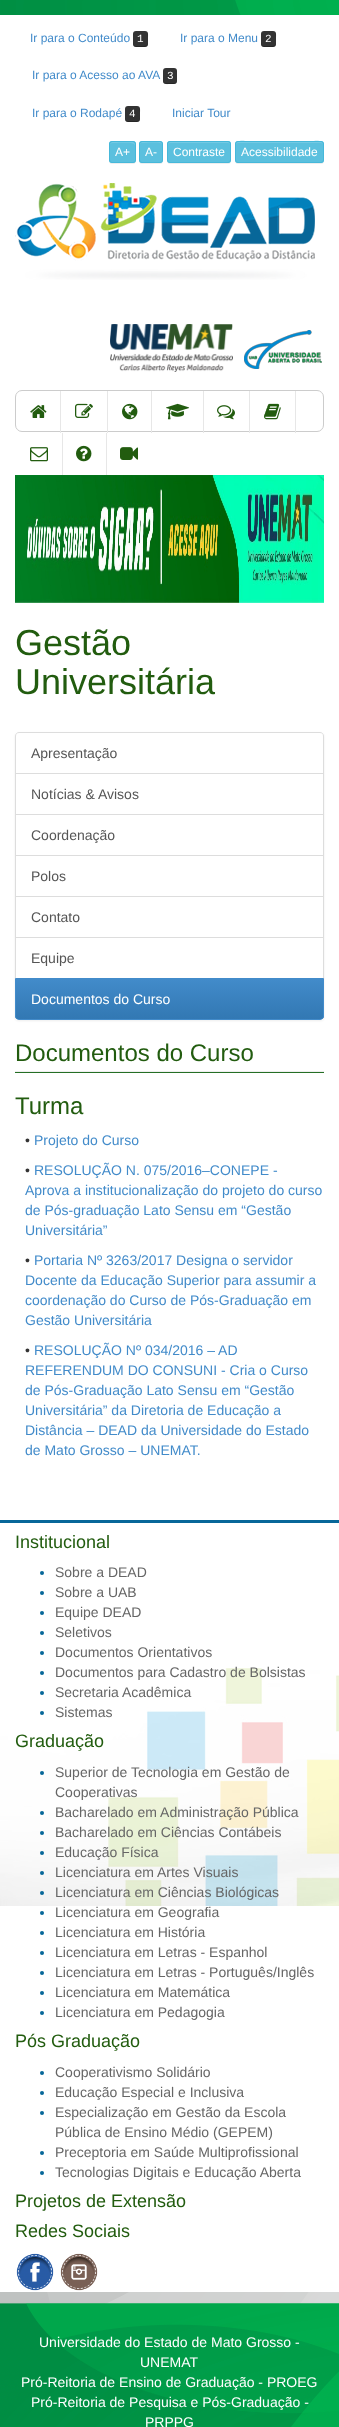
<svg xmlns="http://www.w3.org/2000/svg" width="339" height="2427">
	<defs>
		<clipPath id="clip1"><path d="M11 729H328V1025H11ZM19 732H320C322 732 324 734 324 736V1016C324 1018 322 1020 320 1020H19C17 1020 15 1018 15 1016V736C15 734 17 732 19 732Z" clip-rule="evenodd" /></clipPath>
		<clipPath id="clip2"><path d="M15 978H324V1016C324 1018 322 1020 320 1020H19C17 1020 15 1018 15 1016Z" /></clipPath>
		<linearGradient id="g1" gradientUnits="userSpaceOnUse" x1="170" y1="979" x2="170" y2="1019"><stop offset="0" stop-color="#428BCA" /><stop offset="1" stop-color="#3278B3" /></linearGradient>
	</defs>
	<rect width="100%" height="100%" fill="#FFFFFF" />
	<image x="0" y="0" width="339" height="15" href="assets/img1.png" />
	<text x="30" y="42" font-family="Liberation Sans" font-size="12" fill="#428BCA">Ir para o Conteúdo</text>
	<rect x="133" y="31" width="15" height="16" rx="3" fill="#333333" />
	<path d="M147.5 32.5L148 38C148 36.5 148.5 34 147.5 32.5ZM148 43C147.5 47 142.5 46 140 46C137 46 133.5 47 133 43C133 48 137 47 140.5 47C144 47 148 48 148 43Z" fill="#000000" fill-opacity="0.25" fill-rule="evenodd" />
	<text x="137" y="42" font-family="Liberation Mono" font-size="11" fill="#FFFFFF">1</text>
	<text x="180" y="42" font-family="Liberation Sans" font-size="12" fill="#428BCA">Ir para o Menu</text>
	<rect x="261" y="31" width="15" height="16" rx="3" fill="#333333" />
	<path d="M275.5 32.5L276 38C276 36.5 276.5 34 275.5 32.5ZM276 43C275.5 47 270.5 46 268 46C265 46 261.5 47 261 43C261 48 265 47 268.5 47C272 47 276 48 276 43Z" fill="#000000" fill-opacity="0.25" fill-rule="evenodd" />
	<text x="265" y="42" font-family="Liberation Mono" font-size="11" fill="#FFFFFF">2</text>
	<text x="32" y="79" font-family="Liberation Sans" font-size="12" fill="#428BCA">Ir para o Acesso ao AVA</text>
	<rect x="163" y="68" width="14" height="16" rx="3" fill="#333333" />
	<path d="M163 75V82C164.5 85 168 84 170 84C173.5 84 177 85 177 80C177 82 176 83 174 83H170C163.5 83.5 163 83.5 163 75Z" fill="#000000" fill-opacity="0.25" />
	<text x="167" y="79" font-family="Liberation Mono" font-size="11" fill="#FFFFFF">3</text>
	<text x="32" y="117" font-family="Liberation Sans" font-size="12" fill="#428BCA">Ir para o Rodapé</text>
	<rect x="125" y="106" width="15" height="16" rx="3" fill="#333333" />
	<path d="M139.5 107.5L140 113C140 111.5 140.5 109 139.5 107.5ZM140 118C139.5 122 134.5 121 132 121C129 121 125.5 122 125 118C125 123 129 122 132.5 122C136 122 140 123 140 118Z" fill="#000000" fill-opacity="0.25" fill-rule="evenodd" />
	<text x="129" y="117" font-family="Liberation Mono" font-size="11" fill="#FFFFFF">4</text>
	<text x="172" y="117" font-family="Liberation Sans" font-size="12" fill="#428BCA">Iniciar Tour</text>
	<rect x="109" y="142" width="27" height="22" rx="3" fill="#000000" fill-opacity="0.07" filter="blur(0.5px)" />
	<rect x="109" y="141" width="27" height="22" rx="3" fill="#5BC0DE" />
	<path d="M112 143C116 143 133 142 134 144C134.5 144 135 145 135 146V144C135 143 134 142 133 142H112C111 142 110 143 110 144Z" fill="#74C9E3" />
	<rect x="109.5" y="141.5" width="26" height="21" rx="2.5" fill="none" stroke="#46B8DA" />
	<text x="115" y="156" font-family="Liberation Sans" font-size="12" fill="#FFFFFF">A+</text>
	<rect x="139" y="142" width="24" height="22" rx="3" fill="#000000" fill-opacity="0.07" filter="blur(0.5px)" />
	<rect x="139" y="141" width="24" height="22" rx="3" fill="#5BC0DE" />
	<path d="M142 143C146.5 143 159.5 141.5 162 144C162 143 161 142 160 142H142C141 142 140 143 140 144V144.5C140.5 143.5 141 143 142 143ZM162 159V161ZM140 160.5V156Z" fill="#74C9E3" fill-rule="evenodd" />
	<rect x="139.5" y="141.5" width="23" height="21" rx="2.5" fill="none" stroke="#46B8DA" />
	<text x="145" y="156" font-family="Liberation Sans" font-size="12" fill="#FFFFFF">A-</text>
	<rect x="167" y="142" width="64" height="22" rx="3" fill="#000000" fill-opacity="0.07" filter="blur(0.5px)" />
	<rect x="167" y="141" width="64" height="22" rx="3" fill="#5BC0DE" />
	<path d="M170 143H228C229 143 230 144 230 145C230 139 222 142 218 142H180C176 142 168 139 168 145C168 144 169 143 170 143Z" fill="#74C9E3" />
	<rect x="167.5" y="141.5" width="63" height="21" rx="2.5" fill="none" stroke="#46B8DA" />
	<text x="173" y="156" font-family="Liberation Sans" font-size="12" fill="#FFFFFF">Contraste</text>
	<rect x="235" y="142" width="89" height="22" rx="3" fill="#000000" fill-opacity="0.07" filter="blur(0.5px)" />
	<rect x="235" y="141" width="89" height="22" rx="3" fill="#5BC0DE" />
	<path d="M238 143H321C322 143 323 144 323 145C323 138 310 142 307 142H252C249 142 236 138 236 145C236 144 237 143 238 143Z" fill="#74C9E3" />
	<rect x="235.5" y="141.5" width="88" height="21" rx="2.5" fill="none" stroke="#46B8DA" />
	<text x="241" y="156" font-family="Liberation Sans" font-size="12" fill="#FFFFFF">Acessibilidade</text>
	<image x="15" y="183" width="300" height="97" href="assets/img2.png" />
	<image x="110" y="324" width="123" height="48" href="assets/img3.png" />
	<image x="244" y="330" width="78" height="39" href="assets/img4.png" />
	<rect x="15.5" y="390.5" width="308" height="41" rx="6.5" fill="none" stroke="#CCCCCC" />
	<rect x="60" y="391" width="1" height="42" fill="#E7E7E7" />
	<image x="30" y="405" width="17" height="13" href="assets/img5.png" />
	<rect x="107" y="391" width="1" height="42" fill="#E7E7E7" />
	<image x="75" y="403" width="18" height="15" href="assets/img6.png" />
	<rect x="151" y="391" width="1" height="42" fill="#E7E7E7" />
	<image x="122" y="403" width="16" height="17" href="assets/img7.png" />
	<rect x="203" y="391" width="1" height="42" fill="#E7E7E7" />
	<image x="166" y="403" width="24" height="17" href="assets/img8.png" />
	<rect x="249" y="391" width="1" height="42" fill="#E7E7E7" />
	<image x="217" y="405" width="18" height="15" href="assets/img9.png" />
	<rect x="295" y="391" width="1" height="42" fill="#E7E7E7" />
	<image x="264" y="403" width="17" height="17" href="assets/img10.png" />
	<rect x="62" y="433" width="1" height="42" fill="#E7E7E7" />
	<image x="30" y="447" width="18" height="15" href="assets/img11.png" />
	<rect x="106" y="433" width="1" height="42" fill="#E7E7E7" />
	<image x="76" y="445" width="16" height="17" href="assets/img12.png" />
	<image x="120" y="447" width="18" height="13" href="assets/img13.png" />
	<image x="15" y="475" width="309" height="128" href="assets/img14.png" />
	<g font-family="Liberation Sans" font-size="36" fill="#225C0F">
		<text x="15" y="655">Gestão</text>
		<text x="15" y="694">Universitária</text>
	</g>
	<g clip-path="url(#clip1)">
		<rect x="15" y="733" width="309" height="288" rx="4" fill="#000000" fill-opacity="0.07" filter="blur(1px)" />
	</g>
	<path d="M19 732.5H320C322 732.5 323.5 734 323.5 736V773.5H15.5V736C15.5 734 17 732.5 19 732.5Z" fill="none" stroke="#DDDDDD" />
	<text x="31" y="758" font-family="Liberation Sans" font-size="14" fill="#555555">Apresentação</text>
	<rect x="15.5" y="773.5" width="308" height="41" fill="none" stroke="#DDDDDD" />
	<text x="31" y="799" font-family="Liberation Sans" font-size="14" fill="#555555">Notícias &amp; Avisos</text>
	<rect x="15.5" y="814.5" width="308" height="41" fill="none" stroke="#DDDDDD" />
	<text x="31" y="840" font-family="Liberation Sans" font-size="14" fill="#555555">Coordenação</text>
	<rect x="15.5" y="855.5" width="308" height="41" fill="none" stroke="#DDDDDD" />
	<text x="31" y="881" font-family="Liberation Sans" font-size="14" fill="#555555">Polos</text>
	<rect x="15.5" y="896.5" width="308" height="41" fill="none" stroke="#DDDDDD" />
	<text x="31" y="922" font-family="Liberation Sans" font-size="14" fill="#555555">Contato</text>
	<rect x="15.5" y="937.5" width="308" height="41" fill="none" stroke="#DDDDDD" />
	<text x="31" y="963" font-family="Liberation Sans" font-size="14" fill="#555555">Equipe</text>
	<g clip-path="url(#clip2)">
		<rect x="15" y="979" width="309" height="40" fill="url(#g1)" />
	</g>
	<path d="M15.5 978.5H323.5V1016C323.5 1018 322 1019.5 320 1019.5H19C17 1019.5 15.5 1018 15.5 1016Z" fill="none" stroke="#428BCA" />
	<text x="31" y="1004" font-family="Liberation Sans" font-size="14" fill="#FFFFFF">Documentos do Curso</text>
	<text x="15" y="1061" font-family="Liberation Sans" font-size="24" fill="#225C0F">Documentos do Curso</text>
	<rect x="15" y="1072" width="309" height="1" fill="#256F25" />
	<rect x="15" y="1071" width="309" height="1" fill="#EEEEEE" />
	<text x="15" y="1114" font-family="Liberation Sans" font-size="24" fill="#225C0F">Turma</text>
	<text x="25" y="1145" font-family="Liberation Sans" font-size="14" fill="#333333">•</text>
	<text x="34" y="1145" font-family="Liberation Sans" font-size="14" fill="#428BCA">Projeto do Curso</text>
	<text x="25" y="1175" font-family="Liberation Sans" font-size="14" fill="#333333">•</text>
	<g font-family="Liberation Sans" font-size="14" fill="#428BCA">
		<text x="34" y="1175">RESOLUÇÃO N. 075/2016–CONEPE -</text>
		<text x="25" y="1195">Aprova a institucionalização do projeto do curso</text>
		<text x="25" y="1215">de Pós-graduação Lato Sensu em “Gestão</text>
		<text x="25" y="1235">Universitária”</text>
	</g>
	<text x="25" y="1265" font-family="Liberation Sans" font-size="14" fill="#333333">•</text>
	<g font-family="Liberation Sans" font-size="14" fill="#428BCA">
		<text x="34" y="1265">Portaria Nº 3263/2017 Designa o servidor</text>
		<text x="25" y="1285">Docente da Educação Superior para assumir a</text>
		<text x="25" y="1305">coordenação do Curso de Pós-Graduação em</text>
		<text x="25" y="1325">Gestão Universitária</text>
	</g>
	<text x="25" y="1355" font-family="Liberation Sans" font-size="14" fill="#333333">•</text>
	<g font-family="Liberation Sans" font-size="14" fill="#428BCA">
		<text x="34" y="1355">RESOLUÇÃO Nº 034/2016 – AD</text>
		<text x="25" y="1375">REFERENDUM DO CONSUNI - Cria o Curso</text>
		<text x="25" y="1395">de Pós-Graduação Lato Sensu em “Gestão</text>
		<text x="25" y="1415">Universitária” da Diretoria de Educação a</text>
		<text x="25" y="1435">Distância – DEAD da Universidade do Estado</text>
		<text x="25" y="1455">de Mato Grosso – UNEMAT.</text>
	</g>
	<image x="0" y="1668" width="339" height="238" href="assets/img15.png" />
	<rect x="0" y="1520" width="339" height="3" fill="#076799" />
	<text x="15" y="1548" font-family="Liberation Sans" font-size="18" fill="#225C0F">Institucional</text>
	<circle cx="42" cy="1573" r="2" fill="#076799" />
	<text x="55" y="1577" font-family="Liberation Sans" font-size="14" fill="#666666">Sobre a DEAD</text>
	<circle cx="42" cy="1593" r="2" fill="#076799" />
	<text x="55" y="1597" font-family="Liberation Sans" font-size="14" fill="#666666">Sobre a UAB</text>
	<circle cx="42" cy="1613" r="2" fill="#076799" />
	<text x="55" y="1617" font-family="Liberation Sans" font-size="14" fill="#666666">Equipe DEAD</text>
	<circle cx="42" cy="1633" r="2" fill="#076799" />
	<text x="55" y="1637" font-family="Liberation Sans" font-size="14" fill="#666666">Seletivos</text>
	<circle cx="42" cy="1653" r="2" fill="#076799" />
	<text x="55" y="1657" font-family="Liberation Sans" font-size="14" fill="#666666">Documentos Orientativos</text>
	<circle cx="42" cy="1673" r="2" fill="#076799" />
	<text x="55" y="1677" font-family="Liberation Sans" font-size="14" fill="#666666">Documentos para Cadastro de Bolsistas</text>
	<circle cx="42" cy="1693" r="2" fill="#076799" />
	<text x="55" y="1697" font-family="Liberation Sans" font-size="14" fill="#666666">Secretaria Acadêmica</text>
	<circle cx="42" cy="1713" r="2" fill="#076799" />
	<text x="55" y="1717" font-family="Liberation Sans" font-size="14" fill="#666666">Sistemas</text>
	<text x="15" y="1747" font-family="Liberation Sans" font-size="18" fill="#225C0F">Graduação</text>
	<circle cx="42" cy="1773" r="2" fill="#076799" />
	<g font-family="Liberation Sans" font-size="14" fill="#666666">
		<text x="55" y="1777">Superior de Tecnologia em Gestão de</text>
		<text x="55" y="1797">Cooperativas</text>
	</g>
	<circle cx="42" cy="1813" r="2" fill="#076799" />
	<text x="55" y="1817" font-family="Liberation Sans" font-size="14" fill="#666666">Bacharelado em Administração Pública</text>
	<circle cx="42" cy="1833" r="2" fill="#076799" />
	<text x="55" y="1837" font-family="Liberation Sans" font-size="14" fill="#666666">Bacharelado em Ciências Contábeis</text>
	<circle cx="42" cy="1853" r="2" fill="#076799" />
	<text x="55" y="1857" font-family="Liberation Sans" font-size="14" fill="#666666">Educação Física</text>
	<circle cx="42" cy="1873" r="2" fill="#076799" />
	<text x="55" y="1877" font-family="Liberation Sans" font-size="14" fill="#666666">Licenciatura em Artes Visuais</text>
	<circle cx="42" cy="1893" r="2" fill="#076799" />
	<text x="55" y="1897" font-family="Liberation Sans" font-size="14" fill="#666666">Licenciatura em Ciências Biológicas</text>
	<circle cx="42" cy="1913" r="2" fill="#076799" />
	<text x="55" y="1917" font-family="Liberation Sans" font-size="14" fill="#666666">Licenciatura em Geografia</text>
	<circle cx="42" cy="1933" r="2" fill="#076799" />
	<text x="55" y="1937" font-family="Liberation Sans" font-size="14" fill="#666666">Licenciatura em História</text>
	<circle cx="42" cy="1953" r="2" fill="#076799" />
	<text x="55" y="1957" font-family="Liberation Sans" font-size="14" fill="#666666">Licenciatura em Letras - Espanhol</text>
	<circle cx="42" cy="1973" r="2" fill="#076799" />
	<text x="55" y="1977" font-family="Liberation Sans" font-size="14" fill="#666666">Licenciatura em Letras - Português/Inglês</text>
	<circle cx="42" cy="1993" r="2" fill="#076799" />
	<text x="55" y="1997" font-family="Liberation Sans" font-size="14" fill="#666666">Licenciatura em Matemática</text>
	<circle cx="42" cy="2013" r="2" fill="#076799" />
	<text x="55" y="2017" font-family="Liberation Sans" font-size="14" fill="#666666">Licenciatura em Pedagogia</text>
	<text x="15" y="2047" font-family="Liberation Sans" font-size="18" fill="#225C0F">Pós Graduação</text>
	<circle cx="42" cy="2073" r="2" fill="#076799" />
	<text x="55" y="2077" font-family="Liberation Sans" font-size="14" fill="#666666">Cooperativismo Solidário</text>
	<circle cx="42" cy="2093" r="2" fill="#076799" />
	<text x="55" y="2097" font-family="Liberation Sans" font-size="14" fill="#666666">Educação Especial e Inclusiva</text>
	<circle cx="42" cy="2113" r="2" fill="#076799" />
	<g font-family="Liberation Sans" font-size="14" fill="#666666">
		<text x="55" y="2117">Especialização em Gestão da Escola</text>
		<text x="55" y="2137">Pública de Ensino Médio (GEPEM)</text>
	</g>
	<circle cx="42" cy="2153" r="2" fill="#076799" />
	<text x="55" y="2157" font-family="Liberation Sans" font-size="14" fill="#666666">Preceptoria em Saúde Multiprofissional</text>
	<circle cx="42" cy="2173" r="2" fill="#076799" />
	<text x="55" y="2177" font-family="Liberation Sans" font-size="14" fill="#666666">Tecnologias Digitais e Educação Aberta</text>
	<g font-family="Liberation Sans" font-size="18" fill="#225C0F">
		<text x="15" y="2207">Projetos de Extensão</text>
		<text x="15" y="2237">Redes Sociais</text>
	</g>
	<image x="16" y="2253" width="38" height="38" href="assets/img16.png" />
	<image x="60" y="2253" width="38" height="38" href="assets/img17.png" />
	<image x="0" y="2292" width="339" height="135" href="assets/img18.png" />
	<g font-family="Liberation Sans" font-size="14" fill="#FFFFFF">
		<text x="39" y="2347">Universidade do Estado de Mato Grosso -</text>
		<text x="140" y="2367">UNEMAT</text>
		<text x="21" y="2387">Pró-Reitoria de Ensino de Graduação - PROEG</text>
		<text x="31" y="2407">Pró-Reitoria de Pesquisa e Pós-Graduação -</text>
		<text x="145" y="2427">PRPPG</text>
	</g>
</svg>
